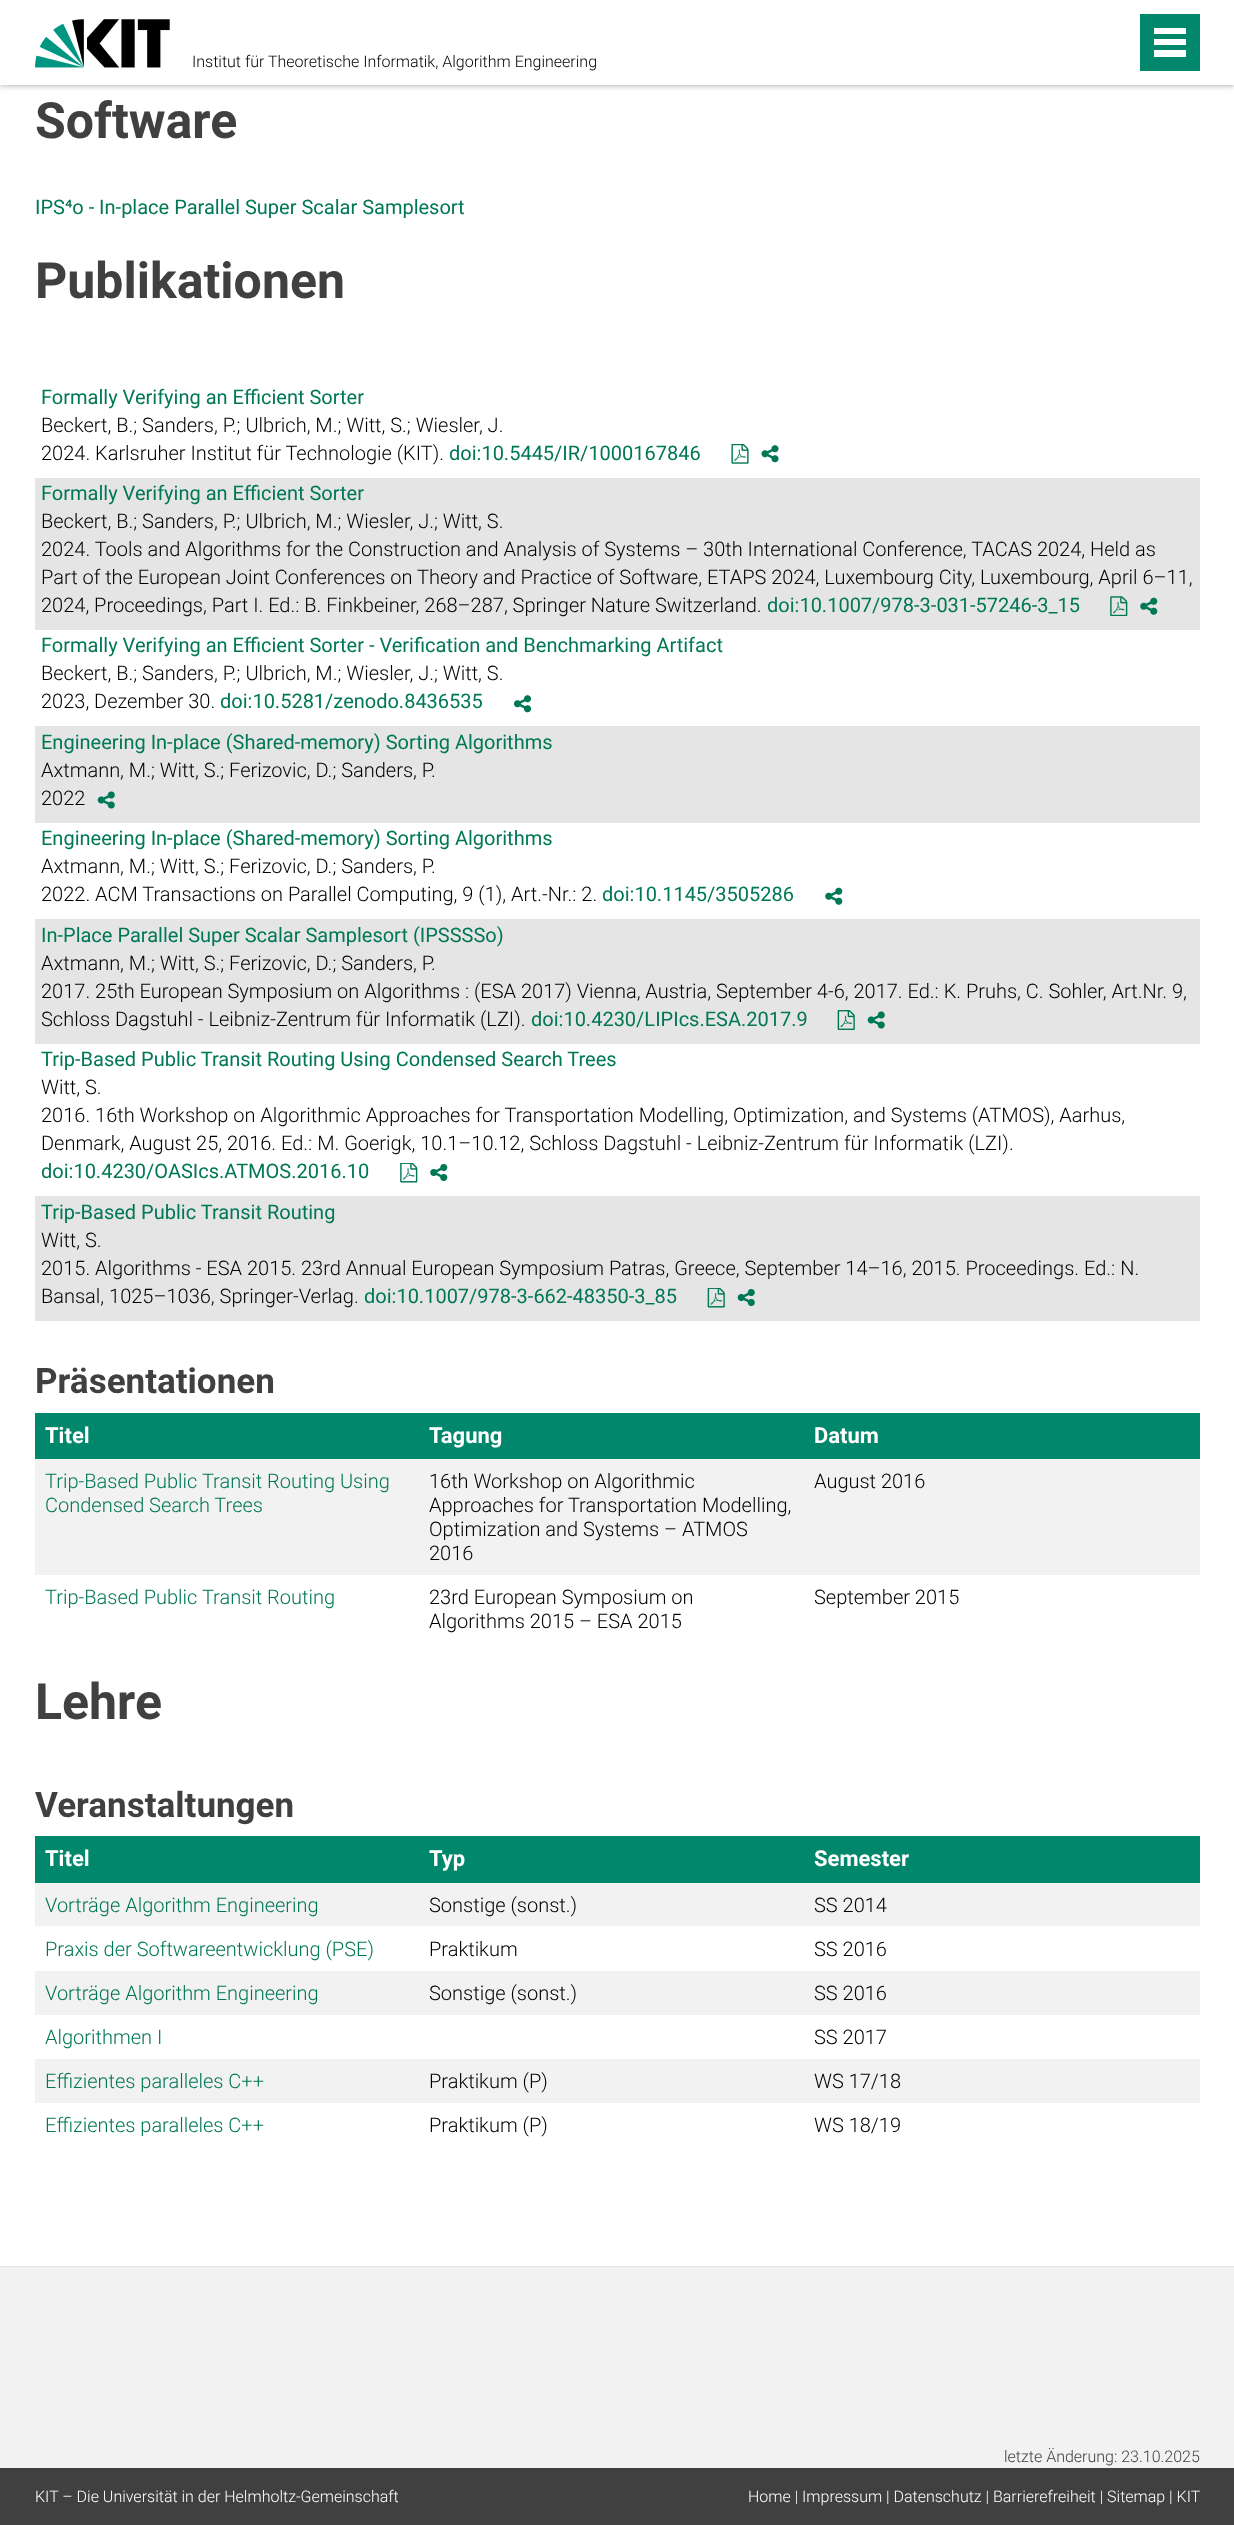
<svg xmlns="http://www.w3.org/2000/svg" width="1234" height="2525">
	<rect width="100%" height="100%" fill="#FFFFFF" />
	<rect x="0" y="0" width="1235" height="85" fill="#404040" fill-opacity="0.5" filter="blur(3px)" />
	<rect x="0" y="0" width="1234" height="85" fill="#FFFFFF" />
	<image x="35" y="19" width="135" height="49" href="assets/img1.png" />
	<text x="192" y="67" font-family="Roboto" font-size="16" font-weight="300" fill="#000000">Institut für Theoretische Informatik, Algorithm Engineering</text>
	<rect x="1140" y="14" width="60" height="57" fill="#00876C" />
	<rect x="1154" y="50" width="32" height="7" fill="#FFFFFF" />
	<rect x="1154" y="39" width="32" height="6" fill="#FFFFFF" />
	<rect x="1154" y="28" width="32" height="6" fill="#FFFFFF" />
	<text x="35" y="138" font-family="Roboto" font-size="50" font-weight="700" fill="#404040">Software</text>
	<text x="35" y="214" font-family="Roboto" font-size="20" fill="#007755">IPS⁴o - In-place Parallel Super Scalar Samplesort</text>
	<text x="35" y="298" font-family="Roboto" font-size="50" font-weight="700" fill="#404040">Publikationen</text>
	<text x="41" y="404" font-family="Roboto" font-size="20" fill="#007755">Formally Verifying an Efficient Sorter</text>
	<g font-family="Roboto" font-size="20" font-weight="300" fill="#000000">
		<text x="41" y="432">Beckert, B.; Sanders, P.; Ulbrich, M.; Witt, S.; Wiesler, J.</text>
		<text x="41" y="460">2024. Karlsruher Institut für Technologie (KIT).</text>
	</g>
	<text x="449" y="460" font-family="Roboto" font-size="20" fill="#007755">doi:10.5445/IR/1000167846</text>
	<image x="731" y="444" width="18" height="20" href="assets/img2.png" />
	<image x="761" y="445" width="18" height="18" href="assets/img3.png" />
	<rect x="35" y="478" width="1165" height="152" fill="#E5E5E5" />
	<text x="41" y="500" font-family="Roboto" font-size="20" fill="#007755">Formally Verifying an Efficient Sorter</text>
	<g font-family="Roboto" font-size="20" font-weight="300" fill="#000000">
		<text x="41" y="528">Beckert, B.; Sanders, P.; Ulbrich, M.; Wiesler, J.; Witt, S.</text>
		<text x="41" y="556">2024. Tools and Algorithms for the Construction and Analysis of Systems – 30th International Conference, TACAS 2024, Held as</text>
		<text x="41" y="584">Part of the European Joint Conferences on Theory and Practice of Software, ETAPS 2024, Luxembourg City, Luxembourg, April 6–11,</text>
		<text x="41" y="612">2024, Proceedings, Part I. Ed.: B. Finkbeiner, 268–287, Springer Nature Switzerland.</text>
	</g>
	<text x="767" y="612" font-family="Roboto" font-size="20" fill="#007755">doi:10.1007/978-3-031-57246-3_15</text>
	<image x="1110" y="596" width="18" height="20" href="assets/img4.png" />
	<image x="1140" y="597" width="18" height="18" href="assets/img5.png" />
	<text x="41" y="652" font-family="Roboto" font-size="20" fill="#007755">Formally Verifying an Efficient Sorter - Verification and Benchmarking Artifact</text>
	<g font-family="Roboto" font-size="20" font-weight="300" fill="#000000">
		<text x="41" y="680">Beckert, B.; Sanders, P.; Ulbrich, M.; Wiesler, J.; Witt, S.</text>
		<text x="41" y="708">2023, Dezember 30.</text>
	</g>
	<text x="220" y="708" font-family="Roboto" font-size="20" fill="#007755">doi:10.5281/zenodo.8436535</text>
	<image x="513" y="695" width="19" height="18" href="assets/img6.png" />
	<rect x="35" y="726" width="1165" height="97" fill="#E5E5E5" />
	<text x="41" y="749" font-family="Roboto" font-size="20" fill="#007755">Engineering In-place (Shared-memory) Sorting Algorithms</text>
	<g font-family="Roboto" font-size="20" font-weight="300" fill="#000000">
		<text x="41" y="777">Axtmann, M.; Witt, S.; Ferizovic, D.; Sanders, P.</text>
		<text x="41" y="805">2022</text>
	</g>
	<image x="97" y="791" width="18" height="18" href="assets/img7.png" />
	<text x="41" y="845" font-family="Roboto" font-size="20" fill="#007755">Engineering In-place (Shared-memory) Sorting Algorithms</text>
	<g font-family="Roboto" font-size="20" font-weight="300" fill="#000000">
		<text x="41" y="873">Axtmann, M.; Witt, S.; Ferizovic, D.; Sanders, P.</text>
		<text x="41" y="901">2022. ACM Transactions on Parallel Computing, 9 (1), Art.-Nr.: 2.</text>
	</g>
	<text x="602" y="901" font-family="Roboto" font-size="20" fill="#007755">doi:10.1145/3505286</text>
	<image x="825" y="887" width="18" height="18" href="assets/img8.png" />
	<rect x="35" y="919" width="1165" height="125" fill="#E5E5E5" />
	<text x="41" y="942" font-family="Roboto" font-size="20" fill="#007755">In-Place Parallel Super Scalar Samplesort (IPSSSSo)</text>
	<g font-family="Roboto" font-size="20" font-weight="300" fill="#000000">
		<text x="41" y="970">Axtmann, M.; Witt, S.; Ferizovic, D.; Sanders, P.</text>
		<text x="41" y="998">2017. 25th European Symposium on Algorithms : (ESA 2017) Vienna, Austria, September 4-6, 2017. Ed.: K. Pruhs, C. Sohler, Art.Nr. 9,</text>
		<text x="41" y="1026">Schloss Dagstuhl - Leibniz-Zentrum für Informatik (LZI).</text>
	</g>
	<text x="531" y="1026" font-family="Roboto" font-size="20" fill="#007755">doi:10.4230/LIPIcs.ESA.2017.9</text>
	<image x="837" y="1010" width="18" height="20" href="assets/img9.png" />
	<image x="867" y="1011" width="18" height="18" href="assets/img7.png" />
	<text x="41" y="1066" font-family="Roboto" font-size="20" fill="#007755">Trip-Based Public Transit Routing Using Condensed Search Trees</text>
	<g font-family="Roboto" font-size="20" font-weight="300" fill="#000000">
		<text x="41" y="1094">Witt, S.</text>
		<text x="41" y="1122">2016. 16th Workshop on Algorithmic Approaches for Transportation Modelling, Optimization, and Systems (ATMOS), Aarhus,</text>
		<text x="41" y="1150">Denmark, August 25, 2016. Ed.: M. Goerigk, 10.1–10.12, Schloss Dagstuhl - Leibniz-Zentrum für Informatik (LZI).</text>
	</g>
	<text x="41" y="1178" font-family="Roboto" font-size="20" fill="#007755">doi:10.4230/OASIcs.ATMOS.2016.10</text>
	<image x="400" y="1163" width="18" height="20" href="assets/img10.png" />
	<image x="430" y="1163" width="18" height="19" href="assets/img11.png" />
	<rect x="35" y="1196" width="1165" height="125" fill="#E5E5E5" />
	<text x="41" y="1219" font-family="Roboto" font-size="20" fill="#007755">Trip-Based Public Transit Routing</text>
	<g font-family="Roboto" font-size="20" font-weight="300" fill="#000000">
		<text x="41" y="1247">Witt, S.</text>
		<text x="41" y="1275">2015. Algorithms - ESA 2015. 23rd Annual European Symposium Patras, Greece, September 14–16, 2015. Proceedings. Ed.: N.</text>
		<text x="41" y="1303">Bansal, 1025–1036, Springer-Verlag.</text>
	</g>
	<text x="364" y="1303" font-family="Roboto" font-size="20" fill="#007755">doi:10.1007/978-3-662-48350-3_85</text>
	<image x="707" y="1288" width="18" height="20" href="assets/img12.png" />
	<image x="737" y="1288" width="18" height="19" href="assets/img13.png" />
	<text x="35" y="1393" font-family="Roboto" font-size="35" font-weight="700" fill="#404040">Präsentationen</text>
	<rect x="35" y="1413" width="1165" height="46" fill="#00876C" />
	<g font-family="Roboto" font-size="22" font-weight="700" fill="#FFFFFF">
		<text x="45" y="1443">Titel</text>
		<text x="429" y="1443">Tagung</text>
		<text x="814" y="1443">Datum</text>
	</g>
	<rect x="35" y="1459" width="1165" height="116" fill="#F2F2F2" />
	<g font-family="Roboto" font-size="20" font-weight="300" fill="#007755">
		<text x="45" y="1488">Trip-Based Public Transit Routing Using</text>
		<text x="45" y="1512">Condensed Search Trees</text>
	</g>
	<g font-family="Roboto" font-size="20" font-weight="300" fill="#000000">
		<text x="429" y="1488">16th Workshop on Algorithmic</text>
		<text x="429" y="1512">Approaches for Transportation Modelling,</text>
		<text x="429" y="1536">Optimization and Systems – ATMOS</text>
		<text x="429" y="1560">2016</text>
		<text x="814" y="1488">August 2016</text>
	</g>
	<text x="45" y="1604" font-family="Roboto" font-size="20" font-weight="300" fill="#007755">Trip-Based Public Transit Routing</text>
	<g font-family="Roboto" font-size="20" font-weight="300" fill="#000000">
		<text x="429" y="1604">23rd European Symposium on</text>
		<text x="429" y="1628">Algorithms 2015 – ESA 2015</text>
		<text x="814" y="1604">September 2015</text>
	</g>
	<text x="35" y="1719" font-family="Roboto" font-size="50" font-weight="700" fill="#404040">Lehre</text>
	<text x="35" y="1817" font-family="Roboto" font-size="35" font-weight="700" fill="#404040">Veranstaltungen</text>
	<rect x="35" y="1836" width="1165" height="47" fill="#00876C" />
	<g font-family="Roboto" font-size="22" font-weight="700" fill="#FFFFFF">
		<text x="45" y="1866">Titel</text>
		<text x="429" y="1866">Typ</text>
		<text x="814" y="1866">Semester</text>
	</g>
	<rect x="35" y="1883" width="1165" height="43" fill="#F2F2F2" />
	<text x="45" y="1912" font-family="Roboto" font-size="20" font-weight="300" fill="#007755">Vorträge Algorithm Engineering</text>
	<g font-family="Roboto" font-size="20" font-weight="300" fill="#000000">
		<text x="429" y="1912">Sonstige (sonst.)</text>
		<text x="814" y="1912">SS 2014</text>
	</g>
	<text x="45" y="1956" font-family="Roboto" font-size="20" font-weight="300" fill="#007755">Praxis der Softwareentwicklung (PSE)</text>
	<g font-family="Roboto" font-size="20" font-weight="300" fill="#000000">
		<text x="429" y="1956">Praktikum</text>
		<text x="814" y="1956">SS 2016</text>
	</g>
	<rect x="35" y="1971" width="1165" height="44" fill="#F2F2F2" />
	<text x="45" y="2000" font-family="Roboto" font-size="20" font-weight="300" fill="#007755">Vorträge Algorithm Engineering</text>
	<g font-family="Roboto" font-size="20" font-weight="300" fill="#000000">
		<text x="429" y="2000">Sonstige (sonst.)</text>
		<text x="814" y="2000">SS 2016</text>
	</g>
	<text x="45" y="2044" font-family="Roboto" font-size="20" font-weight="300" fill="#007755">Algorithmen I</text>
	<text x="814" y="2044" font-family="Roboto" font-size="20" font-weight="300" fill="#000000">SS 2017</text>
	<rect x="35" y="2059" width="1165" height="44" fill="#F2F2F2" />
	<text x="45" y="2088" font-family="Roboto" font-size="20" font-weight="300" fill="#007755">Effizientes paralleles C++</text>
	<g font-family="Roboto" font-size="20" font-weight="300" fill="#000000">
		<text x="429" y="2088">Praktikum (P)</text>
		<text x="814" y="2088">WS 17/18</text>
	</g>
	<text x="45" y="2132" font-family="Roboto" font-size="20" font-weight="300" fill="#007755">Effizientes paralleles C++</text>
	<g font-family="Roboto" font-size="20" font-weight="300" fill="#000000">
		<text x="429" y="2132">Praktikum (P)</text>
		<text x="814" y="2132">WS 18/19</text>
	</g>
	<rect x="0" y="2267" width="1234" height="201" fill="#F2F2F2" />
	<rect x="0" y="2266" width="1234" height="1" fill="#E6E6E6" />
	<text x="1004" y="2462" font-family="Roboto" font-size="16" font-weight="300" fill="#404040">letzte Änderung: 23.10.2025</text>
	<rect x="0" y="2468" width="1234" height="57" fill="#404040" />
	<g font-family="Roboto" font-size="16" font-weight="300" fill="#FFFFFF">
		<text x="35" y="2502">KIT – Die Universität in der Helmholtz-Gemeinschaft</text>
		<text x="748" y="2502">Home | Impressum | Datenschutz | Barrierefreiheit | Sitemap | KIT</text>
	</g>
</svg>
